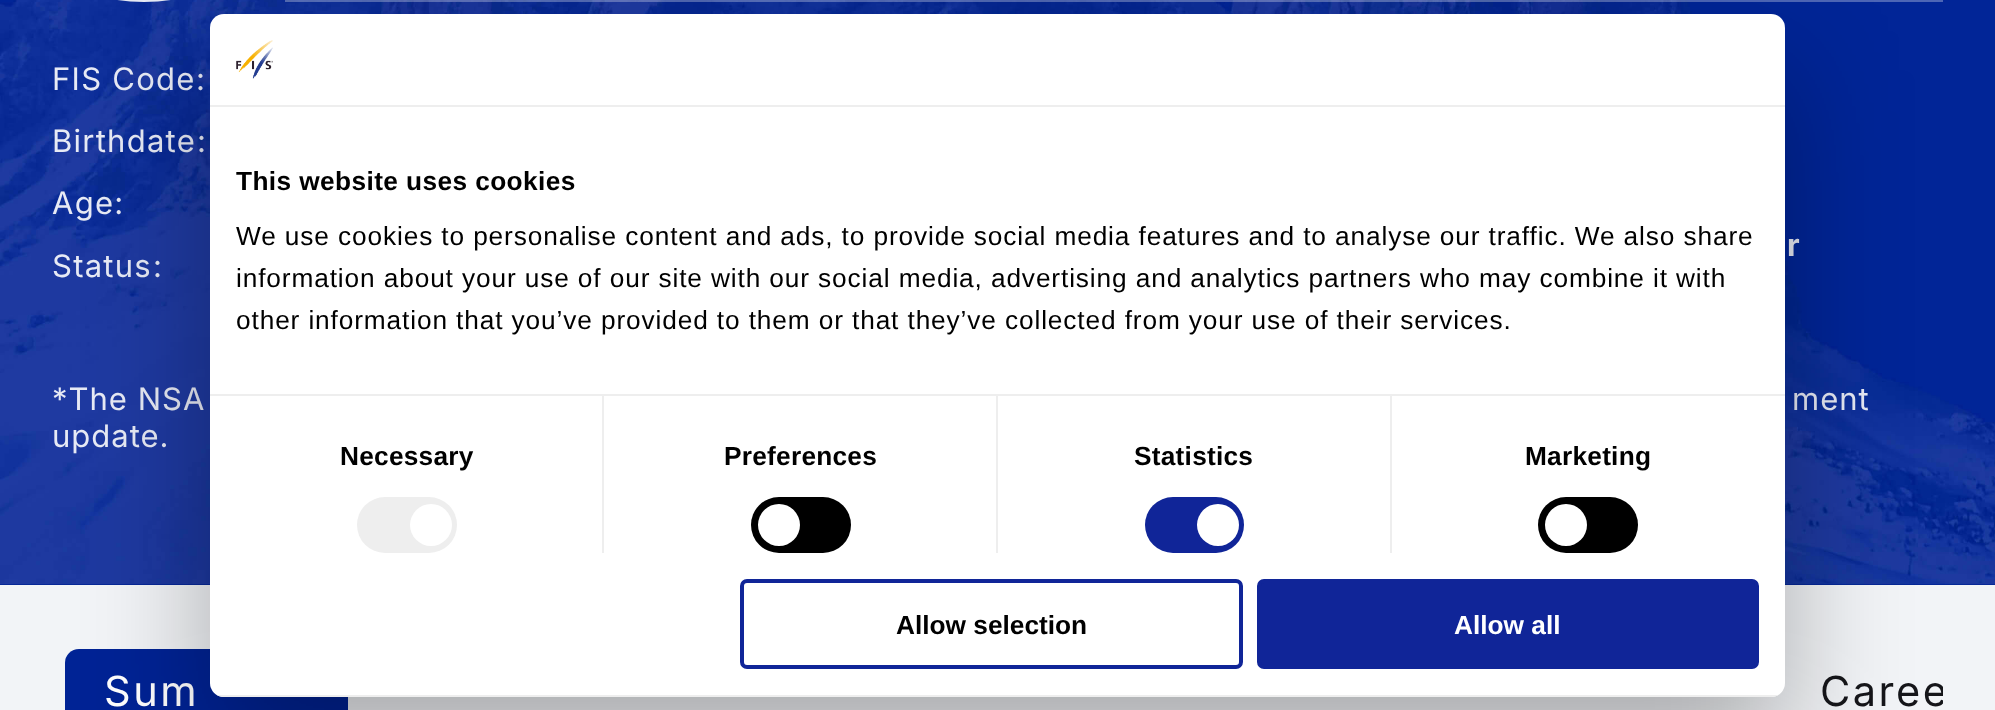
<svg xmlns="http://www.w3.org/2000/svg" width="1995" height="710">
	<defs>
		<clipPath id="clip1"><rect x="53" y="649" width="1890" height="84" /></clipPath>
		<clipPath id="clip2"><rect x="210" y="14" width="1575" height="683" rx="14" /></clipPath>
	</defs>
	<rect width="100%" height="100%" fill="#F2F4F7" />
	<rect x="0" y="584" width="1995" height="1" fill="#002395" />
	<image x="0" y="0" width="1995" height="585" href="assets/img1.png" />
	<rect x="55" y="-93" width="178" height="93" rx="89" fill="none" stroke="#E5E9F4" stroke-width="4" />
	<rect x="285" y="0" width="1658" height="2" fill="#FFFFFF" fill-opacity="0.3" />
	<g font-family="Inter" font-size="31" letter-spacing="1.25" fill="#E7EAF5">
		<text x="52" y="90">FIS Code</text>
		<text x="196" y="90">:</text>
		<text x="52" y="152">Birthdate</text>
		<text x="197" y="152">:</text>
		<text x="52" y="214">Age:</text>
	</g>
	<text x="1787" y="256" font-family="Inter" font-size="31" font-weight="700" letter-spacing="2" fill="#E7EAF5">r</text>
	<g font-family="Inter" font-size="31" letter-spacing="1.25" fill="#E7EAF5">
		<text x="52" y="277">Status</text>
		<text x="153" y="277">:</text>
	</g>
	<g font-family="Inter" font-size="31" letter-spacing="1" fill="#E7EAF5">
		<text x="52" y="410">*The NSA</text>
		<text x="1792" y="410">ment</text>
		<text x="52" y="447">update.</text>
	</g>
	<rect x="65" y="649" width="283" height="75" rx="14" fill="#002395" />
	<text x="104" y="706" font-family="Inter" font-size="41.5" letter-spacing="2.5" fill="#FFFFFF">Sum</text>
	<g clip-path="url(#clip1)">
		<text x="1820" y="706" font-family="Inter" font-size="41.5" letter-spacing="2.5" fill="#16161A">Caree</text>
	</g>
	<rect x="210" y="70" width="1575" height="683" rx="14" fill="#000000" fill-opacity="0.3" filter="blur(59.5px)" />
	<rect x="210" y="14" width="1575" height="683" rx="14" fill="#FFFFFF" />
	<rect x="210" y="105" width="1575" height="2" fill="#EEEEEE" />
	<image x="236" y="40" width="37" height="39" href="assets/img2.png" />
	<rect x="210" y="394" width="1575" height="2" fill="#EEEEEE" />
	<text x="236" y="190" font-family="Liberation Sans" font-size="26.25" font-weight="700" letter-spacing="0.4" fill="#000000">This website uses cookies</text>
	<g font-family="Liberation Sans" font-size="26.25" letter-spacing="0.88" fill="#000000">
		<text x="236" y="245">We use cookies to personalise content and ads, to provide social media features and to analyse our traffic. We also share</text>
		<text x="236" y="287">information about your use of our site with our social media, advertising and analytics partners who may combine it with</text>
		<text x="236" y="329">other information that you’ve provided to them or that they’ve collected from your use of their services.</text>
	</g>
	<rect x="602" y="396" width="2" height="157" fill="#EEEEEE" />
	<text x="340" y="465" font-family="Liberation Sans" font-size="26.25" font-weight="700" letter-spacing="0.25" fill="#000000">Necessary</text>
	<rect x="357" y="497" width="100" height="56" rx="28" fill="#EEEEEE" />
	<circle cx="431" cy="525" r="21" fill="#FFFFFF" />
	<rect x="996" y="396" width="2" height="157" fill="#EEEEEE" />
	<text x="724" y="465" font-family="Liberation Sans" font-size="26.25" font-weight="700" letter-spacing="0.25" fill="#000000">Preferences</text>
	<rect x="751" y="497" width="100" height="56" rx="28" fill="#000000" />
	<circle cx="779" cy="525" r="21" fill="#FFFFFF" />
	<rect x="1390" y="396" width="2" height="157" fill="#EEEEEE" />
	<text x="1134" y="465" font-family="Liberation Sans" font-size="26.25" font-weight="700" letter-spacing="0.25" fill="#000000">Statistics</text>
	<rect x="1145" y="497" width="99" height="56" rx="28" fill="#102598" />
	<circle cx="1218" cy="525" r="21" fill="#FFFFFF" />
	<text x="1525" y="465" font-family="Liberation Sans" font-size="26.25" font-weight="700" letter-spacing="0.25" fill="#000000">Marketing</text>
	<rect x="1538" y="497" width="100" height="56" rx="28" fill="#000000" />
	<circle cx="1566" cy="525" r="21" fill="#FFFFFF" />
	<g clip-path="url(#clip2)">
		<rect x="210" y="695" width="1575" height="2" fill="#EEEEEE" />
	</g>
	<rect x="742" y="581" width="499" height="86" rx="5" fill="none" stroke="#102598" stroke-width="4" />
	<text x="896" y="634" font-family="Liberation Sans" font-size="26.25" font-weight="700" fill="#000000">Allow selection</text>
	<rect x="1259" y="581" width="498" height="86" rx="5" fill="#102598" stroke="#102598" stroke-width="4" />
	<text x="1454" y="634" font-family="Liberation Sans" font-size="26.25" font-weight="700" fill="#FFFFFF">Allow all</text>
</svg>
